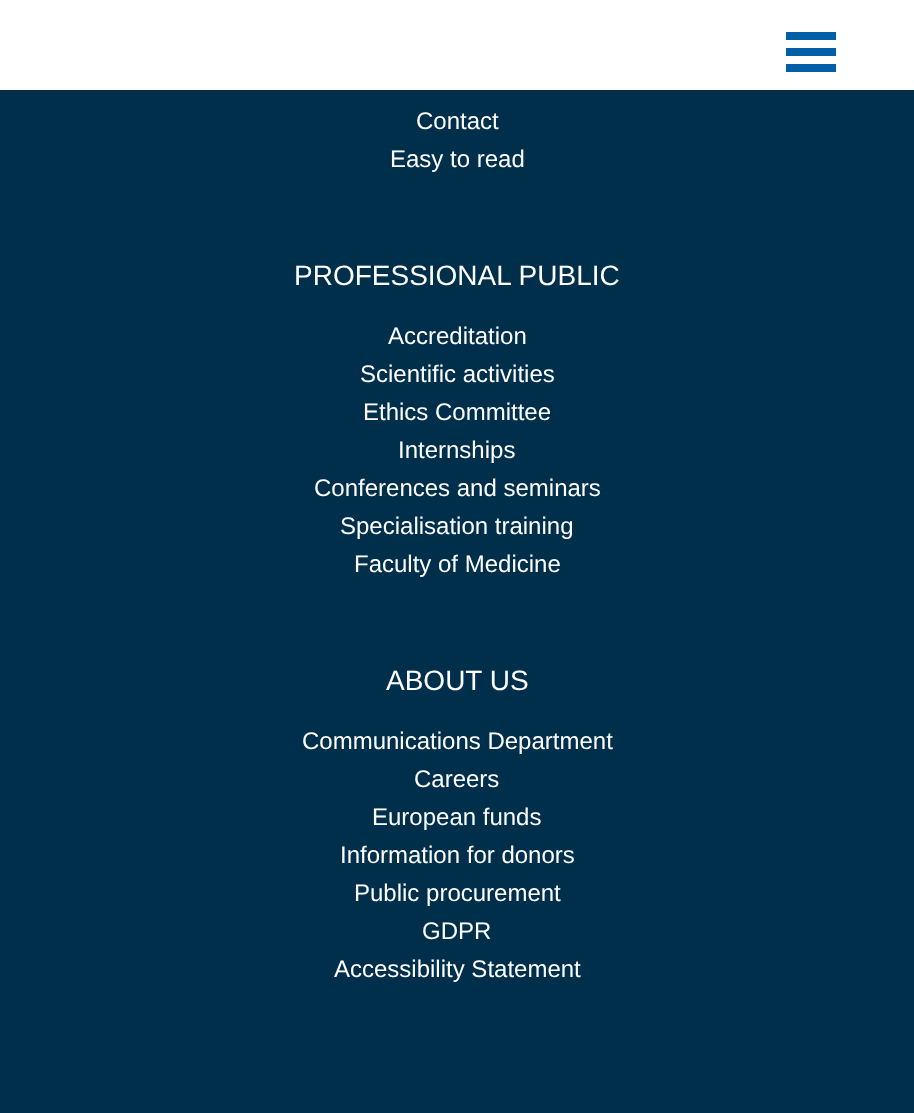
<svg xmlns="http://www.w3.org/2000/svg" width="914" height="1113">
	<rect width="100%" height="100%" fill="#002F4C" />
	<rect x="0" y="0" width="914" height="90" fill="#FFFFFF" />
	<rect x="786" y="32" width="50" height="8" fill="#005FA6" />
	<rect x="786" y="48" width="50" height="8" fill="#005FA6" />
	<rect x="786" y="64" width="50" height="8" fill="#005FA6" />
	<g font-family="Liberation Sans" font-size="24" fill="#FFFFFF">
		<text x="416" y="129">Contact</text>
		<text x="390" y="167">Easy to read</text>
	</g>
	<text x="294" y="285" font-family="Liberation Sans" font-size="28" fill="#FFFFFF">PROFESSIONAL PUBLIC</text>
	<g font-family="Liberation Sans" font-size="24" fill="#FFFFFF">
		<text x="388" y="344">Accreditation</text>
		<text x="360" y="382">Scientific activities</text>
		<text x="363" y="420">Ethics Committee</text>
		<text x="398" y="458">Internships</text>
		<text x="314" y="496">Conferences and seminars</text>
		<text x="340" y="534">Specialisation training</text>
		<text x="354" y="572">Faculty of Medicine</text>
	</g>
	<text x="386" y="690" font-family="Liberation Sans" font-size="28" fill="#FFFFFF">ABOUT US</text>
	<g font-family="Liberation Sans" font-size="24" fill="#FFFFFF">
		<text x="302" y="749">Communications Department</text>
		<text x="414" y="787">Careers</text>
		<text x="372" y="825">European funds</text>
		<text x="340" y="863">Information for donors</text>
		<text x="354" y="901">Public procurement</text>
		<text x="422" y="939">GDPR</text>
		<text x="334" y="977">Accessibility Statement</text>
	</g>
</svg>
